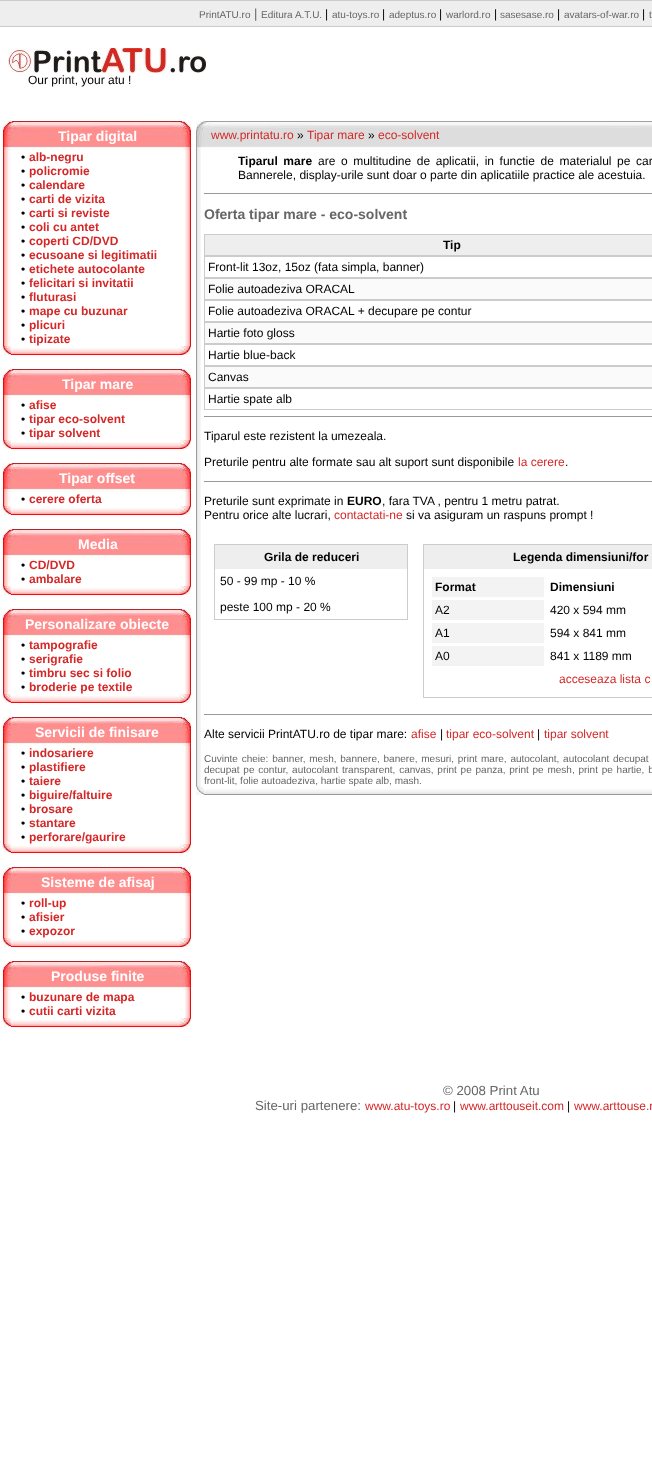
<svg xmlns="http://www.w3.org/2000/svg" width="652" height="1474">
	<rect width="100%" height="100%" fill="#FFFFFF" />
	<rect x="0" y="1" width="652" height="25" fill="#EEEEEE" />
	<rect x="0" y="0" width="652" height="1" fill="#CCCCCC" />
	<rect x="0" y="26" width="652" height="1" fill="#CCCCCC" />
	<text x="199" y="18" font-family="Liberation Sans" font-size="10" fill="#666666">PrintATU.ro</text>
	<text x="254" y="18" font-family="Liberation Sans" font-size="13" fill="#666666">|</text>
	<text x="261" y="18" font-family="Liberation Sans" font-size="10" fill="#666666">Editura A.T.U.</text>
	<text x="325" y="18" font-family="Liberation Sans" font-size="12" fill="#000000">|</text>
	<text x="332" y="18" font-family="Liberation Sans" font-size="10" fill="#666666">atu-toys.ro</text>
	<text x="382" y="18" font-family="Liberation Sans" font-size="12" fill="#000000">|</text>
	<text x="389" y="18" font-family="Liberation Sans" font-size="10" fill="#666666">adeptus.ro</text>
	<text x="439" y="18" font-family="Liberation Sans" font-size="12" fill="#000000">|</text>
	<text x="446" y="18" font-family="Liberation Sans" font-size="10" fill="#666666">warlord.ro</text>
	<text x="494" y="18" font-family="Liberation Sans" font-size="12" fill="#000000">|</text>
	<text x="500" y="18" font-family="Liberation Sans" font-size="10" fill="#666666">sasesase.ro</text>
	<text x="557" y="18" font-family="Liberation Sans" font-size="12" fill="#000000">|</text>
	<text x="564" y="18" font-family="Liberation Sans" font-size="10" fill="#666666">avatars-of-war.ro</text>
	<text x="642" y="18" font-family="Liberation Sans" font-size="12" fill="#000000">|</text>
	<text x="649" y="18" font-family="Liberation Sans" font-size="10" fill="#666666">t</text>
	<image x="8" y="48" width="198" height="25" href="assets/img1.png" />
	<text x="28" y="84" font-family="Liberation Sans" font-size="12" fill="#000000">Our print, your atu !</text>
	<image x="3" y="121" width="188" height="29" href="assets/img2.png" />
	<text x="58" y="141" font-family="Liberation Sans" font-size="14" font-weight="700" fill="#FFFFFF">Tipar digital</text>
	<image x="3" y="150" width="8" height="196" href="assets/img3.png" />
	<text x="21" y="161" font-family="Liberation Sans" font-size="12" fill="#000000">•</text>
	<text x="29" y="161" font-family="Liberation Sans" font-size="12" font-weight="700" fill="#D42828">alb-negru</text>
	<text x="21" y="175" font-family="Liberation Sans" font-size="12" fill="#000000">•</text>
	<text x="29" y="175" font-family="Liberation Sans" font-size="12" font-weight="700" fill="#D42828">policromie</text>
	<text x="21" y="189" font-family="Liberation Sans" font-size="12" fill="#000000">•</text>
	<text x="29" y="189" font-family="Liberation Sans" font-size="12" font-weight="700" fill="#D42828">calendare</text>
	<text x="21" y="203" font-family="Liberation Sans" font-size="12" fill="#000000">•</text>
	<text x="29" y="203" font-family="Liberation Sans" font-size="12" font-weight="700" fill="#D42828">carti de vizita</text>
	<text x="21" y="217" font-family="Liberation Sans" font-size="12" fill="#000000">•</text>
	<text x="29" y="217" font-family="Liberation Sans" font-size="12" font-weight="700" fill="#D42828">carti si reviste</text>
	<text x="21" y="231" font-family="Liberation Sans" font-size="12" fill="#000000">•</text>
	<text x="29" y="231" font-family="Liberation Sans" font-size="12" font-weight="700" fill="#D42828">coli cu antet</text>
	<text x="21" y="245" font-family="Liberation Sans" font-size="12" fill="#000000">•</text>
	<text x="29" y="245" font-family="Liberation Sans" font-size="12" font-weight="700" fill="#D42828">coperti CD/DVD</text>
	<text x="21" y="259" font-family="Liberation Sans" font-size="12" fill="#000000">•</text>
	<text x="29" y="259" font-family="Liberation Sans" font-size="12" font-weight="700" fill="#D42828">ecusoane si legitimatii</text>
	<text x="21" y="273" font-family="Liberation Sans" font-size="12" fill="#000000">•</text>
	<text x="29" y="273" font-family="Liberation Sans" font-size="12" font-weight="700" fill="#D42828">etichete autocolante</text>
	<text x="21" y="287" font-family="Liberation Sans" font-size="12" fill="#000000">•</text>
	<text x="29" y="287" font-family="Liberation Sans" font-size="12" font-weight="700" fill="#D42828">felicitari si invitatii</text>
	<text x="21" y="301" font-family="Liberation Sans" font-size="12" fill="#000000">•</text>
	<text x="29" y="301" font-family="Liberation Sans" font-size="12" font-weight="700" fill="#D42828">fluturasi</text>
	<text x="21" y="315" font-family="Liberation Sans" font-size="12" fill="#000000">•</text>
	<text x="29" y="315" font-family="Liberation Sans" font-size="12" font-weight="700" fill="#D42828">mape cu buzunar</text>
	<text x="21" y="329" font-family="Liberation Sans" font-size="12" fill="#000000">•</text>
	<text x="29" y="329" font-family="Liberation Sans" font-size="12" font-weight="700" fill="#D42828">plicuri</text>
	<text x="21" y="343" font-family="Liberation Sans" font-size="12" fill="#000000">•</text>
	<text x="29" y="343" font-family="Liberation Sans" font-size="12" font-weight="700" fill="#D42828">tipizate</text>
	<image x="183" y="150" width="8" height="196" href="assets/img4.png" />
	<image x="3" y="346" width="8" height="9" href="assets/img5.png" />
	<image x="11" y="348" width="169" height="7" href="assets/img6.png" />
	<image x="180" y="346" width="11" height="9" href="assets/img7.png" />
	<image x="3" y="369" width="188" height="29" href="assets/img2.png" />
	<text x="62" y="389" font-family="Liberation Sans" font-size="14" font-weight="700" fill="#FFFFFF">Tipar mare</text>
	<image x="3" y="398" width="8" height="42" href="assets/img8.png" />
	<text x="21" y="409" font-family="Liberation Sans" font-size="12" fill="#000000">•</text>
	<text x="29" y="409" font-family="Liberation Sans" font-size="12" font-weight="700" fill="#D42828">afise</text>
	<text x="21" y="423" font-family="Liberation Sans" font-size="12" fill="#000000">•</text>
	<text x="29" y="423" font-family="Liberation Sans" font-size="12" font-weight="700" fill="#D42828">tipar eco-solvent</text>
	<text x="21" y="437" font-family="Liberation Sans" font-size="12" fill="#000000">•</text>
	<text x="29" y="437" font-family="Liberation Sans" font-size="12" font-weight="700" fill="#D42828">tipar solvent</text>
	<image x="183" y="398" width="8" height="42" href="assets/img9.png" />
	<image x="3" y="440" width="8" height="9" href="assets/img5.png" />
	<image x="11" y="442" width="169" height="7" href="assets/img6.png" />
	<image x="180" y="440" width="11" height="9" href="assets/img7.png" />
	<image x="3" y="463" width="188" height="29" href="assets/img2.png" />
	<text x="59" y="483" font-family="Liberation Sans" font-size="14" font-weight="700" fill="#FFFFFF">Tipar offset</text>
	<image x="3" y="492" width="8" height="14" href="assets/img10.png" />
	<text x="21" y="503" font-family="Liberation Sans" font-size="12" fill="#000000">•</text>
	<text x="29" y="503" font-family="Liberation Sans" font-size="12" font-weight="700" fill="#D42828">cerere oferta</text>
	<image x="183" y="492" width="8" height="14" href="assets/img11.png" />
	<image x="3" y="506" width="8" height="9" href="assets/img5.png" />
	<image x="11" y="508" width="169" height="7" href="assets/img6.png" />
	<image x="180" y="506" width="11" height="9" href="assets/img7.png" />
	<image x="3" y="529" width="188" height="29" href="assets/img2.png" />
	<text x="78" y="549" font-family="Liberation Sans" font-size="14" font-weight="700" fill="#FFFFFF">Media</text>
	<image x="3" y="558" width="8" height="28" href="assets/img12.png" />
	<text x="21" y="569" font-family="Liberation Sans" font-size="12" fill="#000000">•</text>
	<text x="29" y="569" font-family="Liberation Sans" font-size="12" font-weight="700" fill="#D42828">CD/DVD</text>
	<text x="21" y="583" font-family="Liberation Sans" font-size="12" fill="#000000">•</text>
	<text x="29" y="583" font-family="Liberation Sans" font-size="12" font-weight="700" fill="#D42828">ambalare</text>
	<image x="183" y="558" width="8" height="28" href="assets/img13.png" />
	<image x="3" y="586" width="8" height="9" href="assets/img5.png" />
	<image x="11" y="588" width="169" height="7" href="assets/img6.png" />
	<image x="180" y="586" width="11" height="9" href="assets/img7.png" />
	<image x="3" y="609" width="188" height="29" href="assets/img2.png" />
	<text x="25" y="629" font-family="Liberation Sans" font-size="14" font-weight="700" fill="#FFFFFF">Personalizare obiecte</text>
	<image x="3" y="638" width="8" height="56" href="assets/img14.png" />
	<text x="21" y="649" font-family="Liberation Sans" font-size="12" fill="#000000">•</text>
	<text x="29" y="649" font-family="Liberation Sans" font-size="12" font-weight="700" fill="#D42828">tampografie</text>
	<text x="21" y="663" font-family="Liberation Sans" font-size="12" fill="#000000">•</text>
	<text x="29" y="663" font-family="Liberation Sans" font-size="12" font-weight="700" fill="#D42828">serigrafie</text>
	<text x="21" y="677" font-family="Liberation Sans" font-size="12" fill="#000000">•</text>
	<text x="29" y="677" font-family="Liberation Sans" font-size="12" font-weight="700" fill="#D42828">timbru sec si folio</text>
	<text x="21" y="691" font-family="Liberation Sans" font-size="12" fill="#000000">•</text>
	<text x="29" y="691" font-family="Liberation Sans" font-size="12" font-weight="700" fill="#D42828">broderie pe textile</text>
	<image x="183" y="638" width="8" height="56" href="assets/img15.png" />
	<image x="3" y="694" width="8" height="9" href="assets/img5.png" />
	<image x="11" y="696" width="169" height="7" href="assets/img6.png" />
	<image x="180" y="694" width="11" height="9" href="assets/img7.png" />
	<image x="3" y="717" width="188" height="29" href="assets/img2.png" />
	<text x="35" y="737" font-family="Liberation Sans" font-size="14" font-weight="700" fill="#FFFFFF">Servicii de finisare</text>
	<image x="3" y="746" width="8" height="98" href="assets/img16.png" />
	<text x="21" y="757" font-family="Liberation Sans" font-size="12" fill="#000000">•</text>
	<text x="29" y="757" font-family="Liberation Sans" font-size="12" font-weight="700" fill="#D42828">indosariere</text>
	<text x="21" y="771" font-family="Liberation Sans" font-size="12" fill="#000000">•</text>
	<text x="29" y="771" font-family="Liberation Sans" font-size="12" font-weight="700" fill="#D42828">plastifiere</text>
	<text x="21" y="785" font-family="Liberation Sans" font-size="12" fill="#000000">•</text>
	<text x="29" y="785" font-family="Liberation Sans" font-size="12" font-weight="700" fill="#D42828">taiere</text>
	<text x="21" y="799" font-family="Liberation Sans" font-size="12" fill="#000000">•</text>
	<text x="29" y="799" font-family="Liberation Sans" font-size="12" font-weight="700" fill="#D42828">biguire/faltuire</text>
	<text x="21" y="813" font-family="Liberation Sans" font-size="12" fill="#000000">•</text>
	<text x="29" y="813" font-family="Liberation Sans" font-size="12" font-weight="700" fill="#D42828">brosare</text>
	<text x="21" y="827" font-family="Liberation Sans" font-size="12" fill="#000000">•</text>
	<text x="29" y="827" font-family="Liberation Sans" font-size="12" font-weight="700" fill="#D42828">stantare</text>
	<text x="21" y="841" font-family="Liberation Sans" font-size="12" fill="#000000">•</text>
	<text x="29" y="841" font-family="Liberation Sans" font-size="12" font-weight="700" fill="#D42828">perforare/gaurire</text>
	<image x="183" y="746" width="8" height="98" href="assets/img17.png" />
	<image x="3" y="844" width="8" height="9" href="assets/img5.png" />
	<image x="11" y="846" width="169" height="7" href="assets/img6.png" />
	<image x="180" y="844" width="11" height="9" href="assets/img7.png" />
	<image x="3" y="867" width="188" height="29" href="assets/img2.png" />
	<text x="41" y="887" font-family="Liberation Sans" font-size="14" font-weight="700" fill="#FFFFFF">Sisteme de afisaj</text>
	<image x="3" y="896" width="8" height="42" href="assets/img8.png" />
	<text x="21" y="907" font-family="Liberation Sans" font-size="12" fill="#000000">•</text>
	<text x="29" y="907" font-family="Liberation Sans" font-size="12" font-weight="700" fill="#D42828">roll-up</text>
	<text x="21" y="921" font-family="Liberation Sans" font-size="12" fill="#000000">•</text>
	<text x="29" y="921" font-family="Liberation Sans" font-size="12" font-weight="700" fill="#D42828">afisier</text>
	<text x="21" y="935" font-family="Liberation Sans" font-size="12" fill="#000000">•</text>
	<text x="29" y="935" font-family="Liberation Sans" font-size="12" font-weight="700" fill="#D42828">expozor</text>
	<image x="183" y="896" width="8" height="42" href="assets/img9.png" />
	<image x="3" y="938" width="8" height="9" href="assets/img5.png" />
	<image x="11" y="940" width="169" height="7" href="assets/img6.png" />
	<image x="180" y="938" width="11" height="9" href="assets/img7.png" />
	<image x="3" y="961" width="188" height="29" href="assets/img2.png" />
	<text x="51" y="981" font-family="Liberation Sans" font-size="14" font-weight="700" fill="#FFFFFF">Produse finite</text>
	<image x="3" y="990" width="8" height="28" href="assets/img12.png" />
	<text x="21" y="1001" font-family="Liberation Sans" font-size="12" fill="#000000">•</text>
	<text x="29" y="1001" font-family="Liberation Sans" font-size="12" font-weight="700" fill="#D42828">buzunare de mapa</text>
	<text x="21" y="1015" font-family="Liberation Sans" font-size="12" fill="#000000">•</text>
	<text x="29" y="1015" font-family="Liberation Sans" font-size="12" font-weight="700" fill="#D42828">cutii carti vizita</text>
	<image x="183" y="990" width="8" height="28" href="assets/img13.png" />
	<image x="3" y="1018" width="8" height="9" href="assets/img5.png" />
	<image x="11" y="1020" width="169" height="7" href="assets/img6.png" />
	<image x="180" y="1018" width="11" height="9" href="assets/img7.png" />
	<image x="196" y="121" width="456" height="28" href="assets/img18.png" />
	<text x="211" y="139" font-family="Liberation Sans" font-size="12" fill="#D42828">www.printatu.ro</text>
	<text x="297" y="139" font-family="Liberation Sans" font-size="12" fill="#000000">»</text>
	<text x="307" y="139" font-family="Liberation Sans" font-size="12" fill="#D42828">Tipar mare</text>
	<text x="368" y="139" font-family="Liberation Sans" font-size="12" fill="#000000">»</text>
	<text x="378" y="139" font-family="Liberation Sans" font-size="12" fill="#D42828">eco-solvent</text>
	<image x="196" y="149" width="5" height="637" href="assets/img19.png" />
	<text x="238" y="165" word-spacing="2.25" font-family="Liberation Sans" font-size="12" font-weight="700" fill="#000000">Tiparul mare</text>
	<g font-family="Liberation Sans" font-size="12" fill="#000000">
		<text x="318" y="165" word-spacing="2.25">are o multitudine de aplicatii, in functie de materialul pe car</text>
		<text x="238" y="179">Bannerele, display-urile sunt doar o parte din aplicatiile practice ale acestuia.</text>
	</g>
	<rect x="204" y="193" width="448" height="1" fill="#999999" />
	<text x="204" y="219" font-family="Liberation Sans" font-size="14" font-weight="700" fill="#666666">Oferta tipar mare - eco-solvent</text>
	<rect x="204.5" y="234.5" width="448" height="21" fill="#EEEEEE" stroke="#CCCCCC" />
	<text x="443" y="249" font-family="Liberation Sans" font-size="12" font-weight="700" fill="#000000">Tip</text>
	<rect x="204.5" y="256.5" width="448" height="21" fill="none" stroke="#CCCCCC" />
	<text x="208" y="271" font-family="Liberation Sans" font-size="12" fill="#000000">Front-lit 13oz, 15oz (fata simpla, banner)</text>
	<rect x="204.5" y="278.5" width="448" height="21" fill="#FAFAFA" stroke="#CCCCCC" />
	<text x="208" y="293" font-family="Liberation Sans" font-size="12" fill="#000000">Folie autoadeziva ORACAL</text>
	<rect x="204.5" y="300.5" width="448" height="21" fill="none" stroke="#CCCCCC" />
	<text x="208" y="315" font-family="Liberation Sans" font-size="12" fill="#000000">Folie autoadeziva ORACAL + decupare pe contur</text>
	<rect x="204.5" y="322.5" width="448" height="21" fill="#FAFAFA" stroke="#CCCCCC" />
	<text x="208" y="337" font-family="Liberation Sans" font-size="12" fill="#000000">Hartie foto gloss</text>
	<rect x="204.5" y="344.5" width="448" height="21" fill="none" stroke="#CCCCCC" />
	<text x="208" y="359" font-family="Liberation Sans" font-size="12" fill="#000000">Hartie blue-back</text>
	<rect x="204.5" y="366.5" width="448" height="21" fill="#FAFAFA" stroke="#CCCCCC" />
	<text x="208" y="381" font-family="Liberation Sans" font-size="12" fill="#000000">Canvas</text>
	<rect x="204.5" y="388.5" width="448" height="21" fill="none" stroke="#CCCCCC" />
	<text x="208" y="403" font-family="Liberation Sans" font-size="12" fill="#000000">Hartie spate alb</text>
	<rect x="204" y="416" width="448" height="1" fill="#999999" />
	<g font-family="Liberation Sans" font-size="12" fill="#000000">
		<text x="204" y="440">Tiparul este rezistent la umezeala.</text>
		<text x="204" y="466">Preturile pentru alte formate sau alt suport sunt disponibile</text>
	</g>
	<text x="518" y="466" font-family="Liberation Sans" font-size="12" fill="#D42828">la cerere</text>
	<text x="565" y="466" font-family="Liberation Sans" font-size="12" fill="#000000">.</text>
	<rect x="204" y="481" width="448" height="1" fill="#999999" />
	<text x="204" y="505" font-family="Liberation Sans" font-size="12" fill="#000000">Preturile sunt exprimate in</text>
	<text x="347" y="505" font-family="Liberation Sans" font-size="12" font-weight="700" fill="#000000">EURO</text>
	<g font-family="Liberation Sans" font-size="12" fill="#000000">
		<text x="382" y="505">, fara TVA , pentru 1 metru patrat.</text>
		<text x="204" y="519">Pentru orice alte lucrari,</text>
	</g>
	<text x="334" y="519" font-family="Liberation Sans" font-size="12" fill="#D42828">contactati-ne</text>
	<text x="406" y="519" font-family="Liberation Sans" font-size="12" fill="#000000">si va asiguram un raspuns prompt !</text>
	<rect x="214.5" y="544.5" width="193" height="75" fill="none" stroke="#CCCCCC" />
	<rect x="215" y="545" width="192" height="24" fill="#EEEEEE" />
	<text x="264" y="561" font-family="Liberation Sans" font-size="12" font-weight="700" fill="#000000">Grila de reduceri</text>
	<g font-family="Liberation Sans" font-size="12" fill="#000000">
		<text x="220" y="585">50 - 99 mp - 10 %</text>
		<text x="220" y="611">peste 100 mp - 20 %</text>
	</g>
	<rect x="423.5" y="544.5" width="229" height="153" fill="none" stroke="#CCCCCC" />
	<rect x="424" y="545" width="228" height="24" fill="#EEEEEE" />
	<text x="513" y="561" font-family="Liberation Sans" font-size="12" font-weight="700" fill="#000000">Legenda dimensiuni/for</text>
	<rect x="432" y="577" width="112" height="20" fill="#F3F3F3" />
	<g font-family="Liberation Sans" font-size="12" font-weight="700" fill="#000000">
		<text x="435" y="591">Format</text>
		<text x="550" y="591">Dimensiuni</text>
	</g>
	<rect x="432" y="600" width="112" height="20" fill="#F3F3F3" />
	<g font-family="Liberation Sans" font-size="12" fill="#000000">
		<text x="435" y="614">A2</text>
		<text x="550" y="614">420 x 594 mm</text>
	</g>
	<rect x="432" y="623" width="112" height="20" fill="#F3F3F3" />
	<g font-family="Liberation Sans" font-size="12" fill="#000000">
		<text x="435" y="637">A1</text>
		<text x="550" y="637">594 x 841 mm</text>
	</g>
	<rect x="432" y="646" width="112" height="20" fill="#F3F3F3" />
	<g font-family="Liberation Sans" font-size="12" fill="#000000">
		<text x="435" y="660">A0</text>
		<text x="550" y="660">841 x 1189 mm</text>
	</g>
	<text x="559" y="683" font-family="Liberation Sans" font-size="12" fill="#D42828">acceseaza lista c</text>
	<rect x="204" y="714" width="448" height="1" fill="#999999" />
	<text x="204" y="738" font-family="Liberation Sans" font-size="12" fill="#000000">Alte servicii PrintATU.ro de tipar mare:</text>
	<text x="411" y="738" font-family="Liberation Sans" font-size="12" fill="#D42828">afise</text>
	<text x="440" y="738" font-family="Liberation Sans" font-size="12" fill="#000000">|</text>
	<text x="446" y="738" font-family="Liberation Sans" font-size="12" fill="#D42828">tipar eco-solvent</text>
	<text x="537" y="738" font-family="Liberation Sans" font-size="12" fill="#000000">|</text>
	<text x="544" y="738" font-family="Liberation Sans" font-size="12" fill="#D42828">tipar solvent</text>
	<g font-family="Liberation Sans" font-size="10" fill="#666666">
		<text x="204" y="762" word-spacing="1">Cuvinte cheie: banner, mesh, bannere, banere, mesuri, print mare, autocolant, autocolant decupat</text>
		<text x="204" y="773" word-spacing="1">decupat pe contur, autocolant transparent, canvas, print pe panza, print pe mesh, print pe hartie, b</text>
		<text x="204" y="784">front-lit, folie autoadeziva, hartie spate alb, mash.</text>
	</g>
	<image x="196" y="786" width="8" height="9" href="assets/img20.png" />
	<image x="204" y="789" width="448" height="6" href="assets/img21.png" />
	<g font-family="Liberation Sans" font-size="13.25" fill="#666666">
		<text x="443" y="1095">© 2008 Print Atu</text>
		<text x="255" y="1110">Site-uri partenere:</text>
	</g>
	<text x="365" y="1110" font-family="Liberation Sans" font-size="12" fill="#D42828">www.atu-toys.ro</text>
	<text x="453" y="1110" font-family="Liberation Sans" font-size="12" fill="#000000">|</text>
	<text x="460" y="1110" font-family="Liberation Sans" font-size="12" fill="#D42828">www.arttouseit.com</text>
	<text x="567" y="1110" font-family="Liberation Sans" font-size="12" fill="#000000">|</text>
	<text x="574" y="1110" font-family="Liberation Sans" font-size="12" fill="#D42828">www.arttouse.r</text>
</svg>
